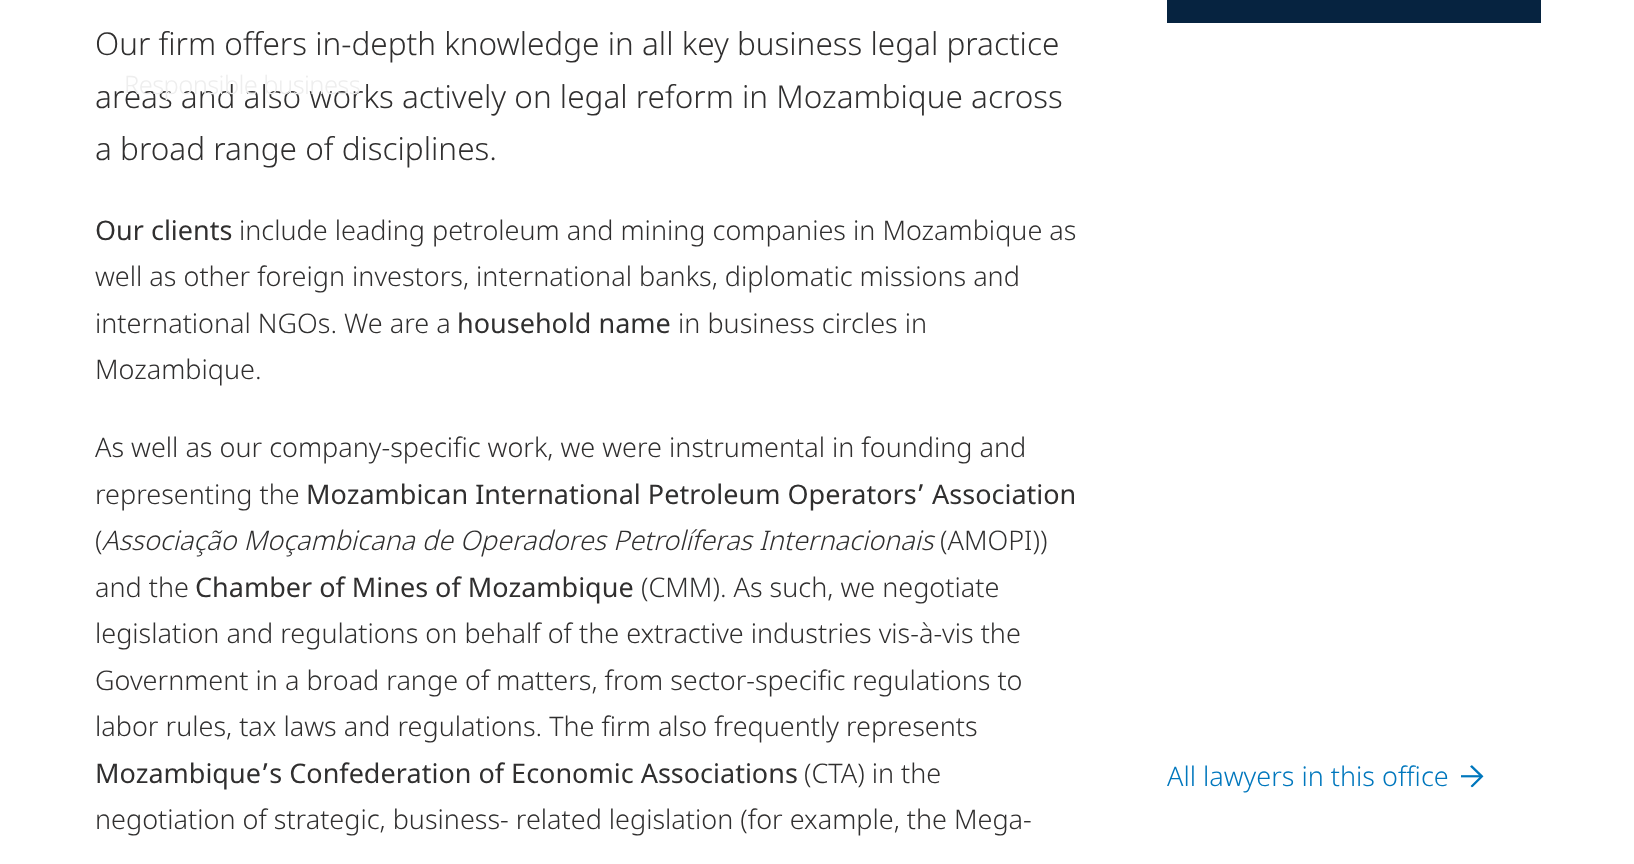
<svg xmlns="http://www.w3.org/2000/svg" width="1634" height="864">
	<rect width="100%" height="100%" fill="#FFFFFF" />
	<g font-family="Noto Sans" font-size="31.5" font-weight="300" fill="#302F2F">
		<text x="95" y="55">Our firm offers in-depth knowledge in all key business legal practice</text>
		<text x="95" y="108">areas and also works actively on legal reform in Mozambique across</text>
		<text x="95" y="160">a broad range of disciplines.</text>
	</g>
	<text x="95" y="240" font-family="Noto Sans" font-size="27" fill="#302F2F">Our clients</text>
	<g font-family="Noto Sans" font-size="27" font-weight="300" fill="#302F2F">
		<text x="239" y="240">include leading petroleum and mining companies in Mozambique as</text>
		<text x="95" y="286">well as other foreign investors, international banks, diplomatic missions and</text>
		<text x="95" y="333">international NGOs. We are a</text>
	</g>
	<text x="457" y="333" font-family="Noto Sans" font-size="27" fill="#302F2F">household name</text>
	<g font-family="Noto Sans" font-size="27" font-weight="300" fill="#302F2F">
		<text x="678" y="333">in business circles in</text>
		<text x="95" y="379">Mozambique.</text>
		<text x="95" y="457">As well as our company-specific work, we were instrumental in founding and</text>
		<text x="95" y="504">representing the</text>
	</g>
	<text x="306" y="504" font-family="Noto Sans" font-size="27" fill="#302F2F">Mozambican International Petroleum Operators’ Association</text>
	<text x="95" y="550" font-family="Noto Sans" font-size="27" font-weight="300" fill="#302F2F">(</text>
	<text x="102" y="550" font-family="Noto Sans" font-size="27" font-weight="300" font-style="italic" fill="#302F2F">Associação Moçambicana de Operadores Petrolíferas Internacionais</text>
	<g font-family="Noto Sans" font-size="27" font-weight="300" fill="#302F2F">
		<text x="940" y="550">(AMOPI))</text>
		<text x="95" y="597">and the</text>
	</g>
	<text x="195" y="597" font-family="Noto Sans" font-size="27" fill="#302F2F">Chamber of Mines of Mozambique</text>
	<g font-family="Noto Sans" font-size="27" font-weight="300" fill="#302F2F">
		<text x="641" y="597">(CMM). As such, we negotiate</text>
		<text x="95" y="643">legislation and regulations on behalf of the extractive industries vis-à-vis the</text>
		<text x="95" y="690">Government in a broad range of matters, from sector-specific regulations to</text>
		<text x="95" y="736">labor rules, tax laws and regulations. The firm also frequently represents</text>
	</g>
	<text x="95" y="783" font-family="Noto Sans" font-size="27" fill="#302F2F">Mozambique’s Confederation of Economic Associations</text>
	<g font-family="Noto Sans" font-size="27" font-weight="300" fill="#302F2F">
		<text x="804" y="783">(CTA) in the</text>
		<text x="95" y="829">negotiation of strategic, business- related legislation (for example, the Mega-</text>
	</g>
	<rect x="1167" y="0" width="374" height="23" fill="#062340" />
	<text x="1167" y="786" font-family="Noto Sans" font-size="27" font-weight="300" fill="#0077BD">All lawyers in this office</text>
	<image x="1461" y="765" width="23" height="23" href="assets/img1.png" />
	<text x="124" y="94" font-family="Noto Sans" font-size="25.5" font-weight="300" letter-spacing="-0.6" fill="#EEEEEE">Responsible business</text>
</svg>
